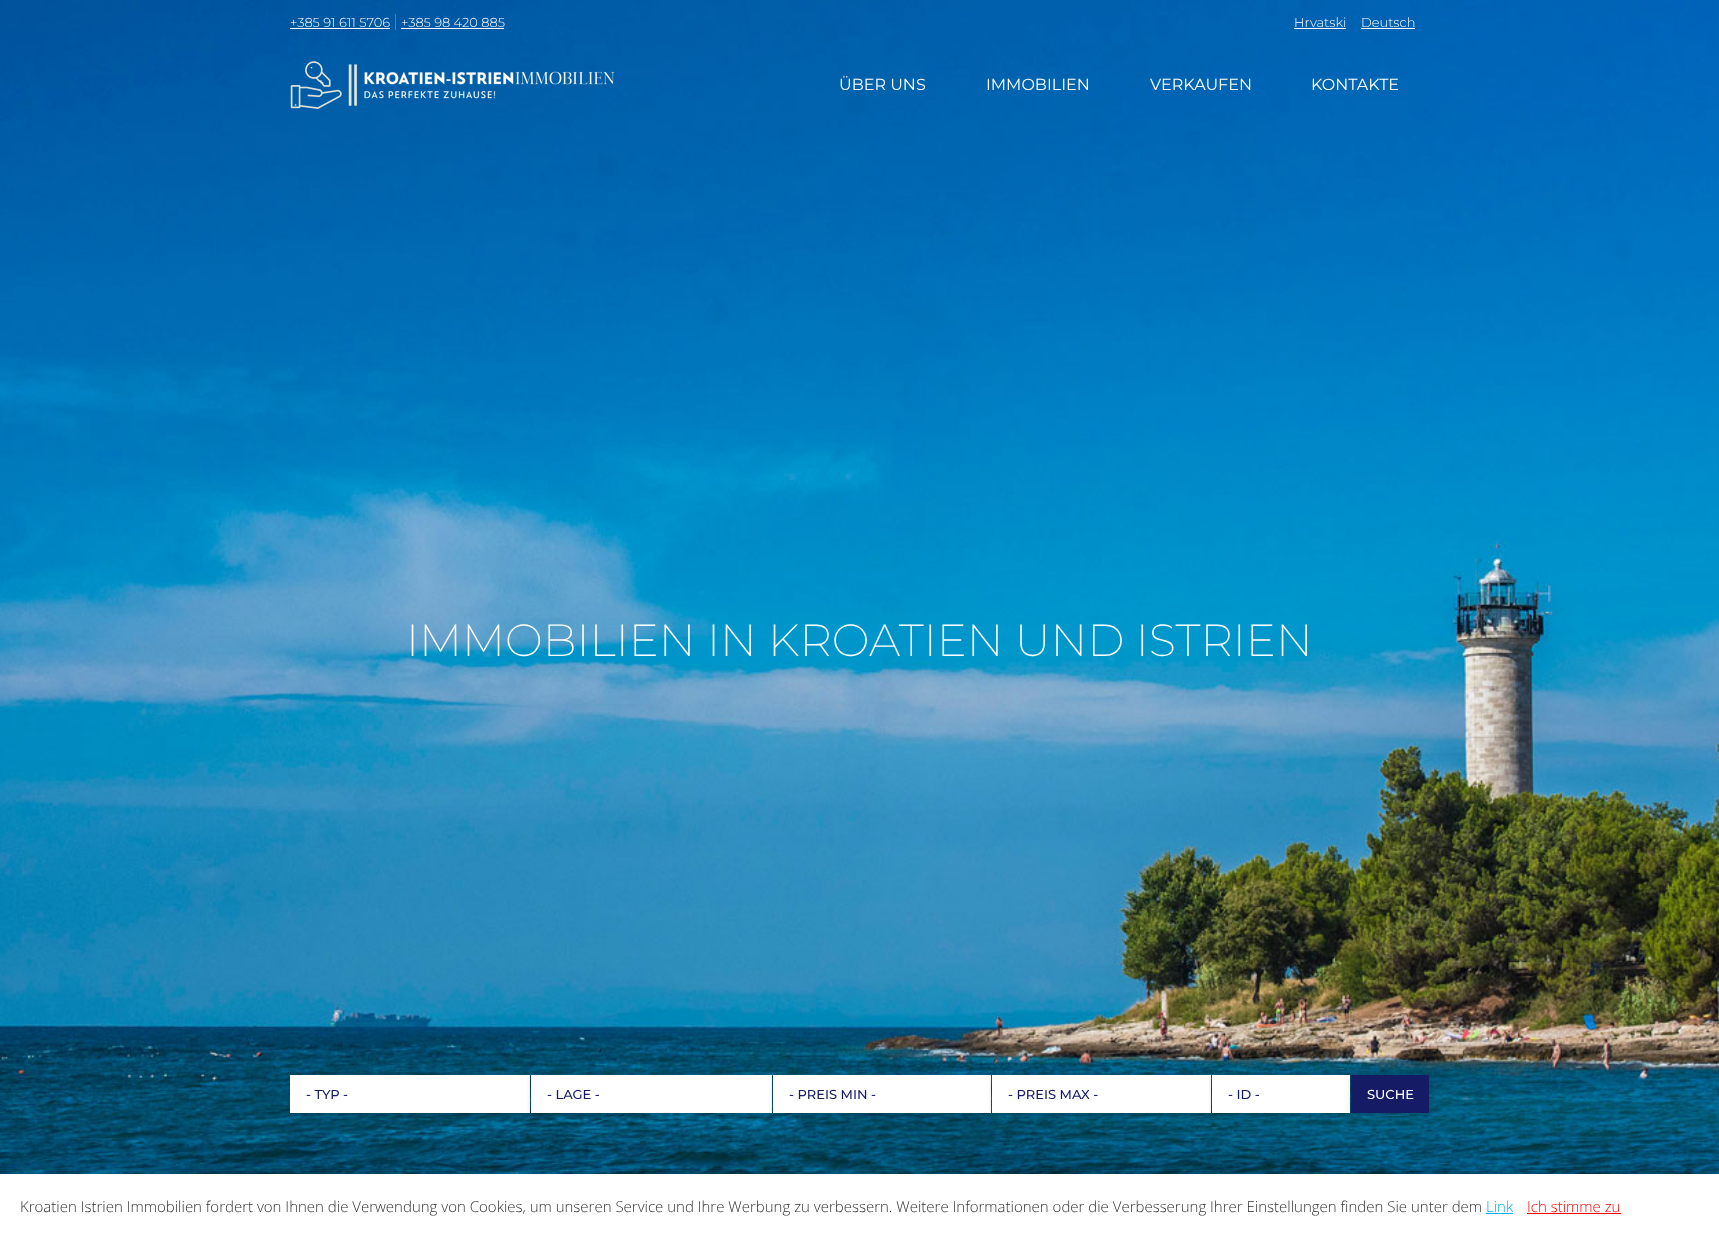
<svg xmlns="http://www.w3.org/2000/svg" width="1719" height="1237">
	<defs>
		<clipPath id="clip1"><path d="M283 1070H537V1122H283ZM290 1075H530V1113H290Z" clip-rule="evenodd" /></clipPath>
	</defs>
	<rect width="100%" height="100%" fill="#FFFFFF" />
	<image x="0" y="0" width="1719" height="1174" href="assets/img1.png" />
	<text x="290" y="27" font-family="Montserrat" font-size="13" font-weight="300" fill="#FFFFFF">+385 91 611 5706</text>
	<rect x="290" y="28" width="100" height="1" fill="#FFFFFF" />
	<text x="401" y="27" font-family="Montserrat" font-size="13" font-weight="300" fill="#FFFFFF">+385 98 420 885</text>
	<rect x="395" y="14" width="1" height="16" fill="#FFFFFF" fill-opacity="0.25" />
	<rect x="401" y="28" width="103" height="1" fill="#FFFFFF" />
	<text x="1294" y="27" font-family="Montserrat" font-size="13" font-weight="300" fill="#FFFFFF">Hrvatski</text>
	<rect x="1294" y="28" width="52" height="1" fill="#FFFFFF" />
	<text x="1361" y="27" font-family="Montserrat" font-size="13" font-weight="300" fill="#FFFFFF">Deutsch</text>
	<rect x="1361" y="28" width="54" height="1" fill="#FFFFFF" />
	<image x="290" y="61" width="325" height="48" href="assets/img2.png" />
	<g font-family="Montserrat" font-size="16" fill="#FFFFFF">
		<text x="839" y="90">ÜBER UNS</text>
		<text x="986" y="90">IMMOBILIEN</text>
		<text x="1150" y="90">VERKAUFEN</text>
		<text x="1311" y="90">KONTAKTE</text>
	</g>
	<text x="406" y="656" font-family="Montserrat" font-size="45" font-weight="200" fill="#FFFFFF">IMMOBILIEN IN KROATIEN UND ISTRIEN</text>
	<rect x="290" y="1075" width="240" height="38" fill="#FFFFFF" />
	<g clip-path="url(#clip1)">
		<rect x="290" y="1077" width="240" height="38" fill="#000000" fill-opacity="0.2" filter="blur(2px)" />
	</g>
	<text x="306" y="1099" font-family="Montserrat" font-size="13" font-weight="500" fill="#161B66">- TYP -</text>
	<rect x="531" y="1077" width="241" height="38" fill="#000000" fill-opacity="0.2" filter="blur(2px)" />
	<rect x="531" y="1075" width="241" height="38" fill="#FFFFFF" />
	<text x="547" y="1099" font-family="Montserrat" font-size="13" font-weight="500" fill="#161B66">- LAGE -</text>
	<rect x="773" y="1077" width="218" height="38" fill="#000000" fill-opacity="0.2" filter="blur(2px)" />
	<rect x="773" y="1075" width="218" height="38" fill="#FFFFFF" />
	<text x="789" y="1099" font-family="Montserrat" font-size="13" font-weight="500" fill="#161B66">- PREIS MIN -</text>
	<rect x="992" y="1077" width="219" height="38" fill="#000000" fill-opacity="0.2" filter="blur(2px)" />
	<rect x="992" y="1075" width="219" height="38" fill="#FFFFFF" />
	<text x="1008" y="1099" font-family="Montserrat" font-size="13" font-weight="500" fill="#161B66">- PREIS MAX -</text>
	<rect x="1212" y="1077" width="138" height="38" fill="#000000" fill-opacity="0.2" filter="blur(2px)" />
	<rect x="1212" y="1075" width="138" height="38" fill="#FFFFFF" />
	<text x="1228" y="1099" font-family="Montserrat" font-size="13" font-weight="500" fill="#161B66">- ID -</text>
	<rect x="1351" y="1077" width="78" height="38" fill="#000000" fill-opacity="0.2" filter="blur(2px)" />
	<rect x="1351" y="1075" width="78" height="38" fill="#161B66" />
	<text x="1367" y="1099" font-family="Montserrat" font-size="13" font-weight="500" fill="#FFFFFF">SUCHE</text>
	<rect x="0" y="1174" width="1719" height="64" fill="#000000" fill-opacity="0.25" filter="blur(5px)" />
	<rect x="0" y="1174" width="1719" height="63" fill="#FFFFFF" />
	<text x="20" y="1212" font-family="Open Sans" font-size="15" font-weight="300" fill="#333333">Kroatien Istrien Immobilien fordert von Ihnen die Verwendung von Cookies, um unseren Service und Ihre Werbung zu verbessern. Weitere Informationen oder die Verbesserung Ihrer Einstellungen finden Sie unter dem</text>
	<text x="1486" y="1212" font-family="Open Sans" font-size="15" font-weight="300" fill="#00AEEF">Link</text>
	<rect x="1486" y="1213" width="27" height="1" fill="#00AEEF" />
	<text x="1527" y="1212" font-family="Open Sans" font-size="15" font-weight="300" fill="#FF0000">Ich stimme zu</text>
	<rect x="1527" y="1213" width="94" height="1" fill="#FF0000" />
</svg>
